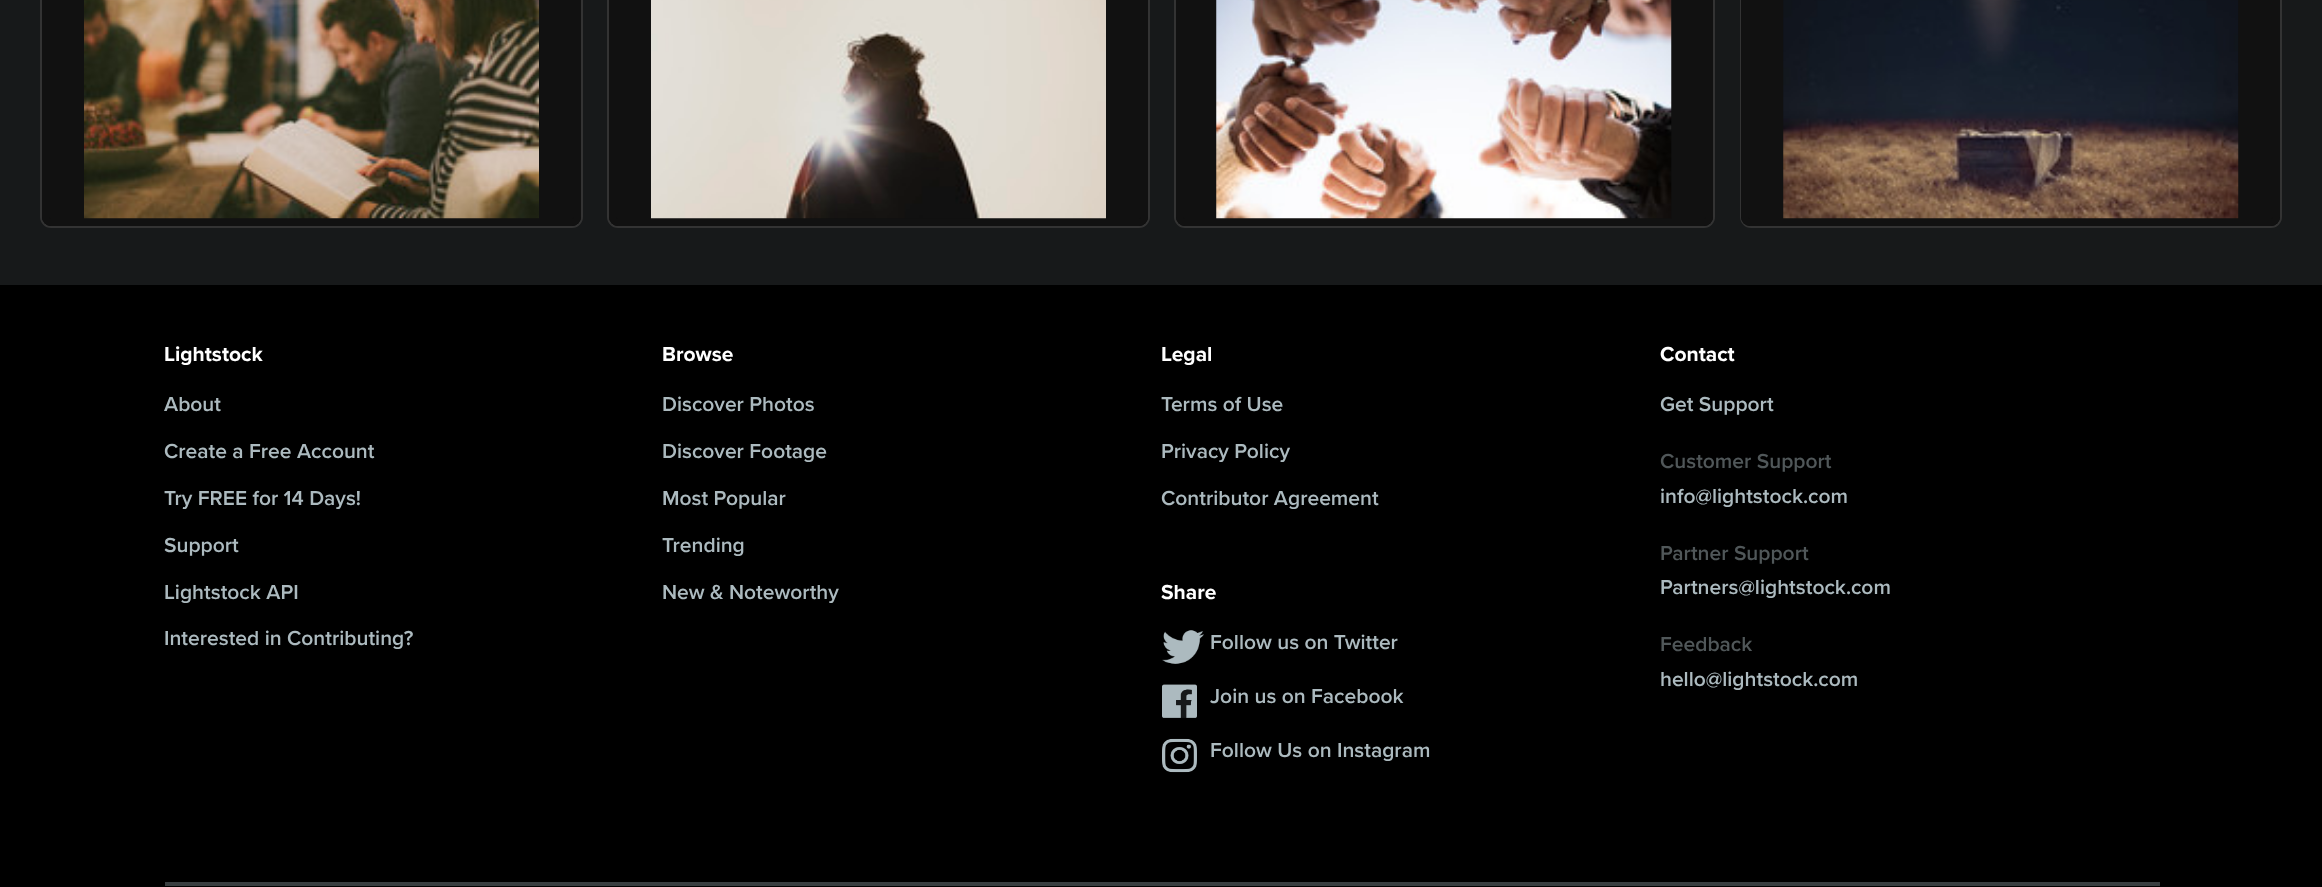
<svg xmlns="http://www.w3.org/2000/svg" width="2322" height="887">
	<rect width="100%" height="100%" fill="#17191A" />
	<rect x="41" y="-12" width="541" height="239" rx="10" fill="none" stroke="#333333" stroke-width="2" />
	<rect x="42" y="-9" width="539" height="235" rx="9" fill="#111111" />
	<image x="84" y="0" width="455" height="219" href="assets/img1.png" />
	<rect x="45.5" y="-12.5" width="532" height="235" rx="5.5" fill="none" stroke="#111111" stroke-width="7" />
	<rect x="608" y="-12" width="541" height="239" rx="10" fill="none" stroke="#333333" stroke-width="2" />
	<rect x="609" y="-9" width="539" height="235" rx="9" fill="#111111" />
	<image x="651" y="0" width="455" height="219" href="assets/img2.png" />
	<rect x="612.5" y="-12.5" width="532" height="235" rx="5.5" fill="none" stroke="#111111" stroke-width="7" />
	<rect x="1175" y="-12" width="539" height="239" rx="10" fill="none" stroke="#333333" stroke-width="2" />
	<rect x="1176" y="-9" width="537" height="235" rx="9" fill="#111111" />
	<image x="1216" y="0" width="456" height="219" href="assets/img3.png" />
	<rect x="1179.5" y="-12.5" width="530" height="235" rx="5.5" fill="none" stroke="#111111" stroke-width="7" />
	<rect x="1741" y="-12" width="540" height="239" rx="10" fill="none" stroke="#333333" stroke-width="2" />
	<rect x="1741" y="-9" width="539" height="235" rx="9" fill="#111111" />
	<image x="1783" y="0" width="456" height="219" href="assets/img4.png" />
	<rect x="1744.5" y="-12.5" width="532" height="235" rx="5.5" fill="none" stroke="#111111" stroke-width="7" />
	<rect x="0" y="285" width="2322" height="602" fill="#000000" />
	<text x="164" y="361" font-family="Proxima Nova" font-size="21" font-weight="700" fill="#FFFFFF">Lightstock</text>
	<g font-family="Proxima Nova" font-size="21" font-weight="600" fill="#ACBABF">
		<text x="164" y="411">About</text>
		<text x="164" y="458">Create a Free Account</text>
		<text x="164" y="505">Try FREE for 14 Days!</text>
		<text x="164" y="552">Support</text>
		<text x="164" y="599">Lightstock API</text>
		<text x="164" y="645">Interested in Contributing?</text>
	</g>
	<text x="662" y="361" font-family="Proxima Nova" font-size="21" font-weight="700" fill="#FFFFFF">Browse</text>
	<g font-family="Proxima Nova" font-size="21" font-weight="600" fill="#ACBABF">
		<text x="662" y="411">Discover Photos</text>
		<text x="662" y="458">Discover Footage</text>
		<text x="662" y="505">Most Popular</text>
		<text x="662" y="552">Trending</text>
		<text x="662" y="599">New &amp; Noteworthy</text>
	</g>
	<text x="1161" y="361" font-family="Proxima Nova" font-size="21" font-weight="700" fill="#FFFFFF">Legal</text>
	<g font-family="Proxima Nova" font-size="21" font-weight="600" fill="#ACBABF">
		<text x="1161" y="411">Terms of Use</text>
		<text x="1161" y="458">Privacy Policy</text>
		<text x="1161" y="505">Contributor Agreement</text>
	</g>
	<text x="1161" y="599" font-family="Proxima Nova" font-size="21" font-weight="700" fill="#FFFFFF">Share</text>
	<image x="1162" y="630" width="42" height="34" href="assets/img5.png" />
	<text x="1210" y="649" font-family="Proxima Nova" font-size="21" font-weight="600" fill="#ACBABF">Follow us on Twitter</text>
	<image x="1162" y="684" width="35" height="34" href="assets/img6.png" />
	<text x="1210" y="703" font-family="Proxima Nova" font-size="21" font-weight="600" fill="#ACBABF">Join us on Facebook</text>
	<image x="1162" y="738" width="35" height="35" href="assets/img7.png" />
	<text x="1210" y="757" font-family="Proxima Nova" font-size="21" font-weight="600" fill="#ACBABF">Follow Us on Instagram</text>
	<text x="1660" y="361" font-family="Proxima Nova" font-size="21" font-weight="700" fill="#FFFFFF">Contact</text>
	<text x="1660" y="411" font-family="Proxima Nova" font-size="21" font-weight="600" fill="#ACBABF">Get Support</text>
	<text x="1660" y="468" font-family="Proxima Nova" font-size="21" font-weight="600" fill="#505759">Customer Support</text>
	<text x="1660" y="503" font-family="Proxima Nova" font-size="21" font-weight="600" fill="#ACBABF">info@lightstock.com</text>
	<text x="1660" y="560" font-family="Proxima Nova" font-size="21" font-weight="600" fill="#505759">Partner Support</text>
	<text x="1660" y="594" font-family="Proxima Nova" font-size="21" font-weight="600" fill="#ACBABF">Partners@lightstock.com</text>
	<text x="1660" y="651" font-family="Proxima Nova" font-size="21" font-weight="600" fill="#505759">Feedback</text>
	<text x="1660" y="686" font-family="Proxima Nova" font-size="21" font-weight="600" fill="#ACBABF">hello@lightstock.com</text>
	<rect x="165" y="882" width="1995" height="4" fill="#393E40" />
</svg>
